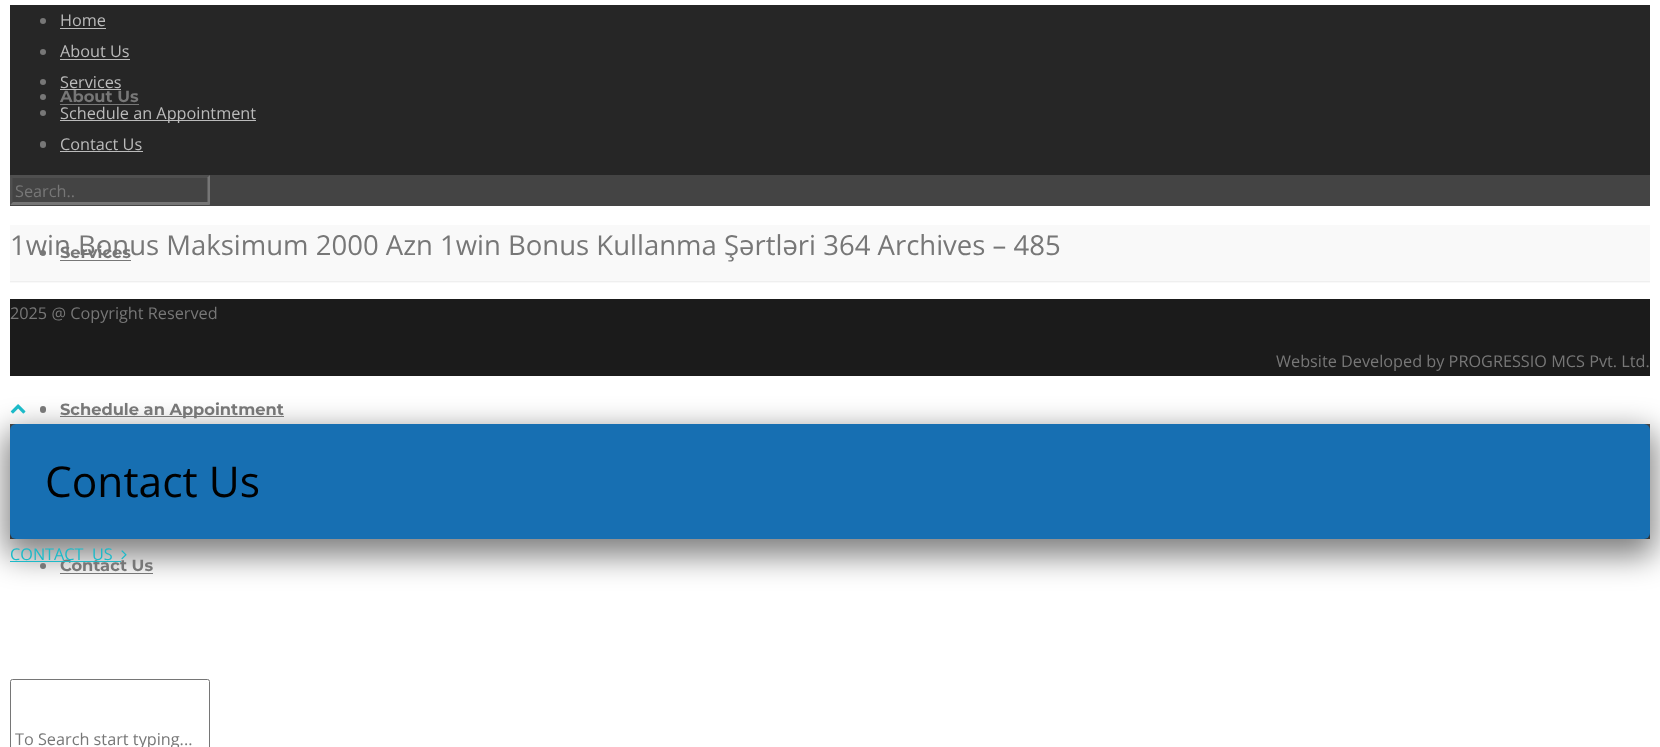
<svg xmlns="http://www.w3.org/2000/svg" width="1660" height="747">
	<rect width="100%" height="100%" fill="#FFFFFF" />
	<rect x="10" y="5" width="1640" height="170" fill="#262626" />
	<circle cx="43" cy="21" r="3" fill="#777777" />
	<text x="60" y="26" font-family="Open Sans" font-size="16.25" fill="#BBBBBB">Home</text>
	<rect x="60" y="28" width="46" height="1" fill="#BBBBBB" />
	<circle cx="43" cy="52" r="3" fill="#777777" />
	<text x="60" y="57" font-family="Open Sans" font-size="16.25" fill="#BBBBBB">About Us</text>
	<rect x="60" y="59" width="70" height="1" fill="#BBBBBB" />
	<circle cx="43" cy="82" r="3" fill="#777777" />
	<text x="60" y="88" font-family="Open Sans" font-size="16.25" fill="#BBBBBB">Services</text>
	<text x="60" y="102" font-family="Montserrat" font-size="16.25" font-weight="700" fill="#777777">About Us</text>
	<rect x="60" y="89" width="61" height="1" fill="#BBBBBB" />
	<circle cx="43" cy="113" r="3" fill="#777777" />
	<rect x="60" y="120" width="196" height="1" fill="#BBBBBB" />
	<text x="60" y="119" font-family="Open Sans" font-size="16.25" fill="#BBBBBB">Schedule an Appointment</text>
	<rect x="40" y="141" width="6" height="7" rx="3" fill="#777777" />
	<text x="60" y="150" font-family="Open Sans" font-size="16.25" fill="#BBBBBB">Contact Us</text>
	<rect x="60" y="151" width="83" height="1" fill="#BBBBBB" />
	<rect x="10" y="175" width="1640" height="31" fill="#444444" />
	<path d="M10 175H210L208 178H12Z" fill="#4F4F4F" />
	<path d="M210 175V205L207.5 202.5V177.5Z" fill="#767676" />
	<path d="M210 205H10L12 202H208Z" fill="#767676" />
	<path d="M10 205V175L12.5 177.5V202.5Z" fill="#4F4F4F" />
	<text x="15" y="197" font-family="Open Sans" font-size="16.25" fill="#777777">Search..</text>
	<circle cx="43" cy="97" r="3" fill="#777777" />
	<rect x="60" y="104" width="79" height="1" fill="#777777" />
	<rect x="10" y="225" width="1640" height="58" fill="#F9F9F9" />
	<circle cx="43" cy="253" r="3" fill="#777777" />
	<text x="60" y="258" font-family="Montserrat" font-size="16.25" font-weight="700" fill="#777777">Services</text>
	<rect x="60" y="260" width="71" height="1" fill="#777777" />
	<rect x="10" y="424" width="1640" height="115" fill="#4D4D4D" />
	<rect x="5" y="431" width="1650" height="125" rx="11" fill="#020202" fill-opacity="0.5" filter="blur(15.5px)" />
	<rect x="40" y="406" width="6" height="7" rx="3" fill="#777777" />
	<rect x="60" y="416" width="224" height="1" fill="#777777" />
	<text x="60" y="415" font-family="Montserrat" font-size="16.25" font-weight="700" fill="#777777">Schedule an Appointment</text>
	<circle cx="43" cy="566" r="3" fill="#777777" />
	<text x="60" y="571" font-family="Montserrat" font-size="16.25" font-weight="700" fill="#777777">Contact Us</text>
	<rect x="60" y="573" width="93" height="1" fill="#777777" />
	<rect x="10.5" y="679.5" width="199" height="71" rx="2" fill="none" stroke="#767676" />
	<text x="15" y="745" font-family="Open Sans" font-size="16.25" fill="#777777">To Search start typing...</text>
	<rect x="10" y="281" width="1640" height="1" fill="#EFEFEF" />
	<text x="10" y="255" font-family="Open Sans" font-size="27.5" fill="#777777">1win Bonus Maksimum 2000 Azn 1win Bonus Kullanma Şərtləri 364 Archives – 485</text>
	<rect x="10" y="299" width="1640" height="77" fill="#1B1B1B" />
	<g font-family="Open Sans" font-size="16.25" fill="#777777">
		<text x="10" y="319">2025 @ Copyright Reserved</text>
		<text x="1276" y="367">Website Developed by PROGRESSIO MCS Pvt. Ltd.</text>
	</g>
	<image x="10" y="404" width="16" height="10" href="assets/img1.png" />
	<rect x="10" y="424" width="1640" height="115" rx="6" fill="#176FB2" />
	<text x="45" y="497" font-family="Open Sans" font-size="42.5" fill="#000000">Contact Us</text>
	<text x="10" y="560" font-family="Open Sans" font-size="16.25" fill="#1CBAC8" xml:space="preserve">CONTACT  US</text>
	<rect x="10" y="561" width="111" height="1" fill="#1CBAC8" />
	<image x="121" y="550" width="6" height="10" href="assets/img2.png" />
</svg>
